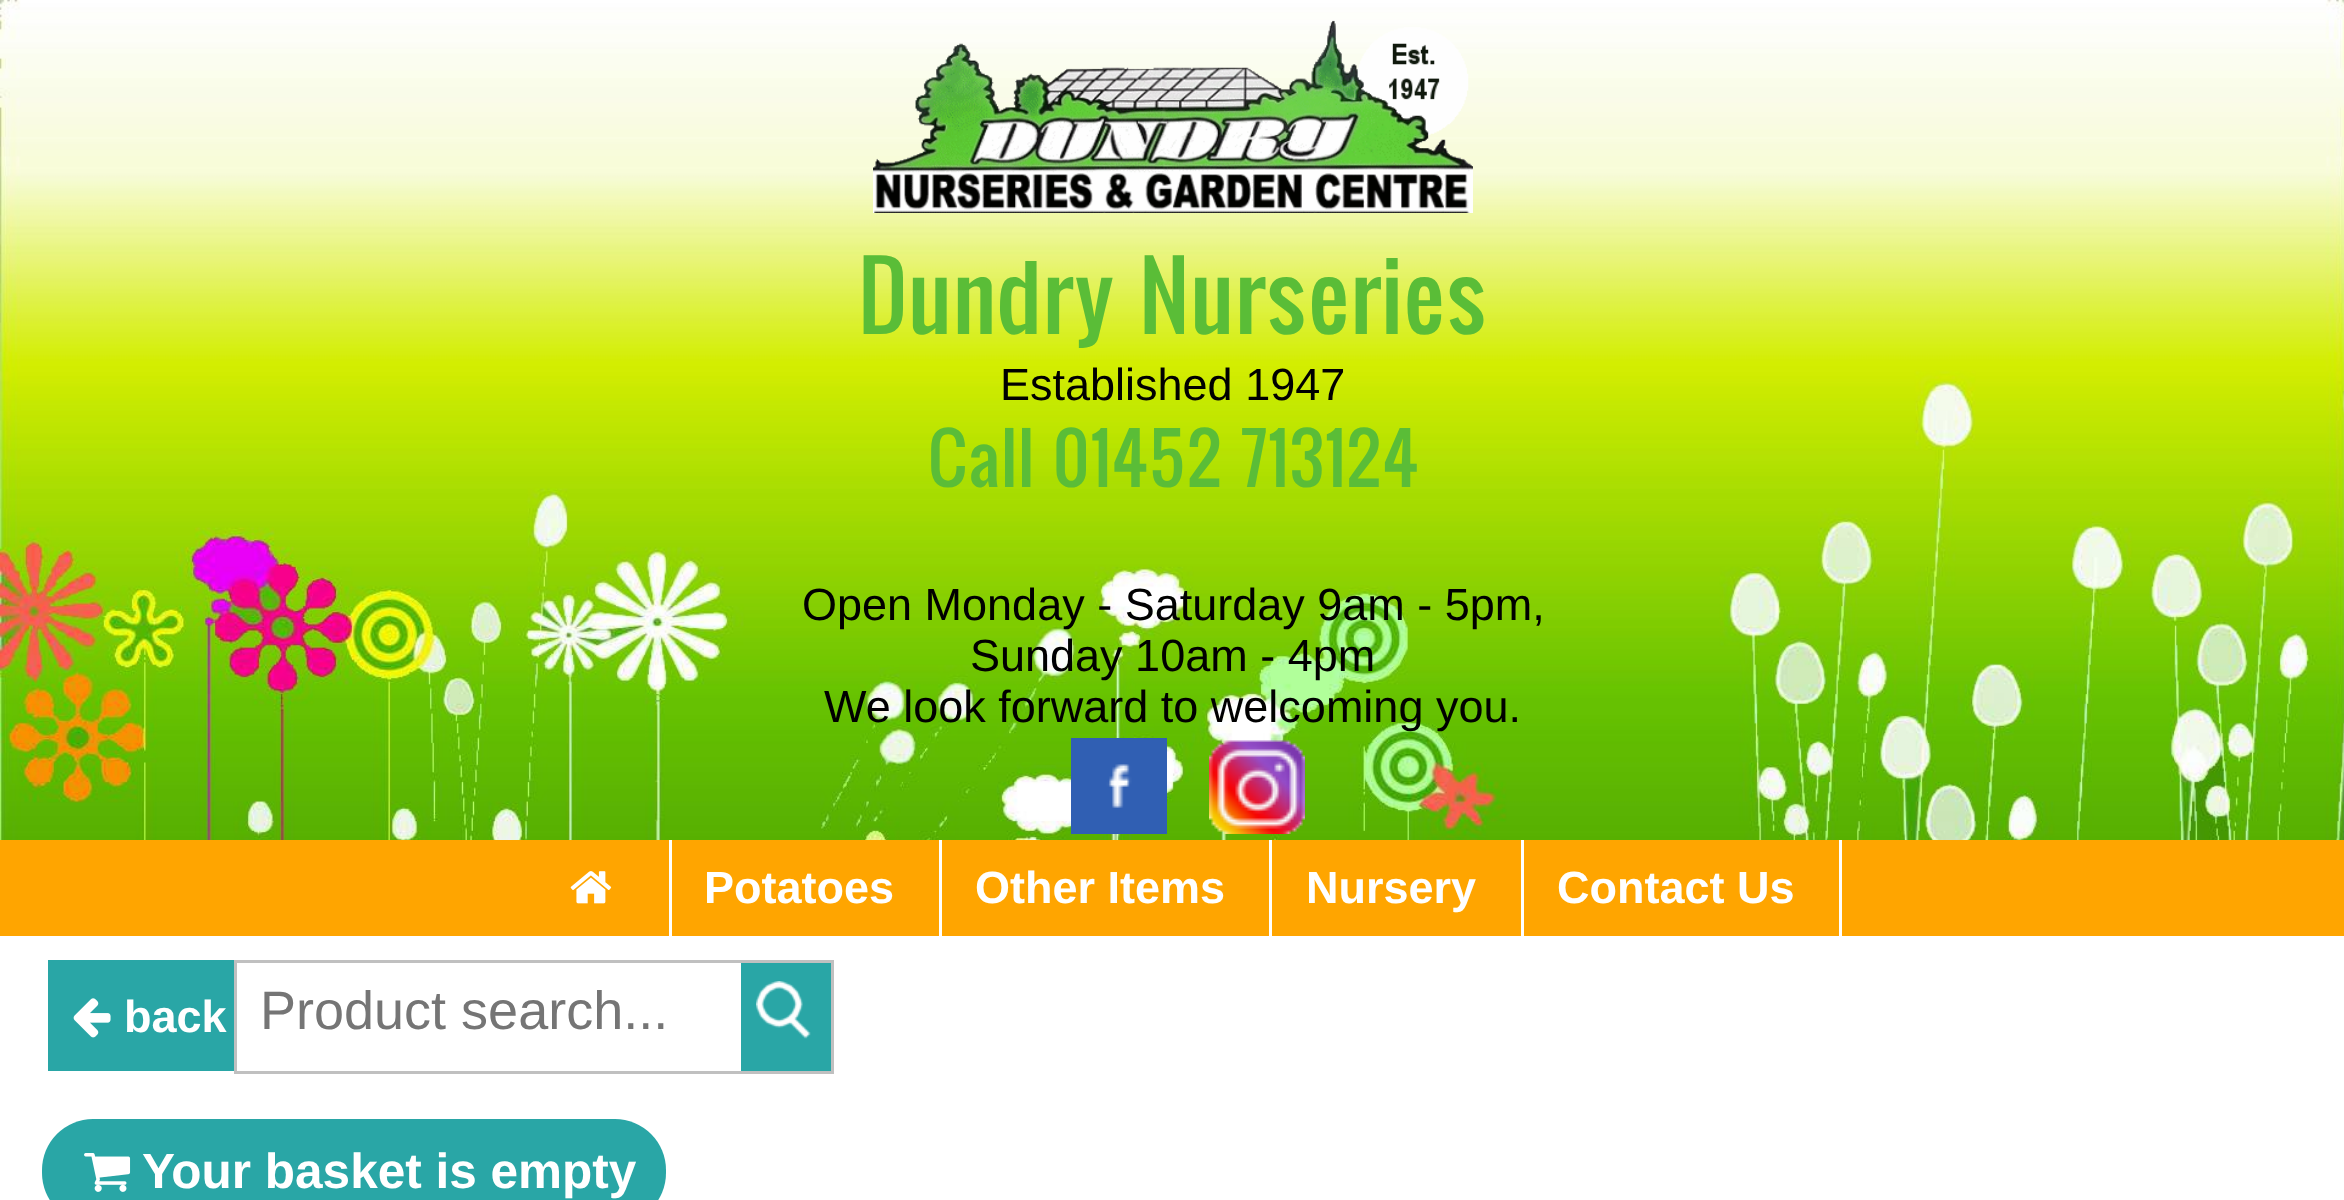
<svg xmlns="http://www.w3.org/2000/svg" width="2344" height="1200">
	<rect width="100%" height="100%" fill="#FFFFFF" />
	<image x="0" y="0" width="2344" height="840" href="assets/img1.png" />
	<image x="873" y="20" width="600" height="193" href="assets/img2.png" />
	<text x="858" y="334" font-family="Oswald" font-size="90" fill="#5ABD37">Dundry Nurseries</text>
	<text x="1000" y="400" font-family="Liberation Sans" font-size="45" fill="#000000">Established 1947</text>
	<text x="928" y="487" font-family="Oswald" font-size="67.5" fill="#5ABD37">Call 01452 713124</text>
	<g font-family="Liberation Sans" font-size="45" fill="#000000">
		<text x="802" y="620">Open Monday - Saturday 9am - 5pm,</text>
		<text x="970" y="671">Sunday 10am - 4pm</text>
		<text x="824" y="722">We look forward to welcoming you.</text>
	</g>
	<image x="1071" y="738" width="96" height="96" href="assets/img3.png" />
	<image x="1209" y="740" width="96" height="94" href="assets/img4.png" />
	<rect x="0" y="840" width="2344" height="96" fill="#FFA500" />
	<rect x="669" y="840" width="3" height="96" fill="#FFFFFF" />
	<image x="570" y="871" width="42" height="33" href="assets/img5.png" />
	<rect x="939" y="840" width="3" height="96" fill="#FFFFFF" />
	<text x="704" y="903" font-family="Liberation Sans" font-size="45" font-weight="700" fill="#FFFFFF">Potatoes</text>
	<rect x="1269" y="840" width="3" height="96" fill="#FFFFFF" />
	<text x="975" y="903" font-family="Liberation Sans" font-size="45" font-weight="700" fill="#FFFFFF">Other Items</text>
	<rect x="1521" y="840" width="3" height="96" fill="#FFFFFF" />
	<text x="1306" y="903" font-family="Liberation Sans" font-size="45" font-weight="700" fill="#FFFFFF">Nursery</text>
	<rect x="1839" y="840" width="3" height="96" fill="#FFFFFF" />
	<text x="1557" y="903" font-family="Liberation Sans" font-size="45" font-weight="700" fill="#FFFFFF">Contact Us</text>
	<rect x="48" y="960" width="186" height="111" fill="#29A6A6" />
	<image x="73" y="998" width="38" height="40" href="assets/img6.png" />
	<text x="124" y="1032" font-family="Liberation Sans" font-size="45" font-weight="700" fill="#FFFFFF">back</text>
	<rect x="235.5" y="961.5" width="597" height="111" fill="none" stroke="#C0C0C0" stroke-width="3" />
	<text x="260" y="1029" font-family="Liberation Sans" font-size="54" fill="#757575">Product search...</text>
	<rect x="741" y="963" width="90" height="108" fill="#29A6A6" />
	<image x="756" y="981" width="55" height="58" href="assets/img7.png" />
	<rect x="42" y="1119" width="624" height="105" rx="51" fill="#29A6A6" />
	<image x="84" y="1153" width="47" height="39" href="assets/img8.png" />
	<text x="142" y="1188" font-family="Liberation Sans" font-size="49.5" font-weight="700" fill="#FFFFFF">Your basket is empty</text>
</svg>
